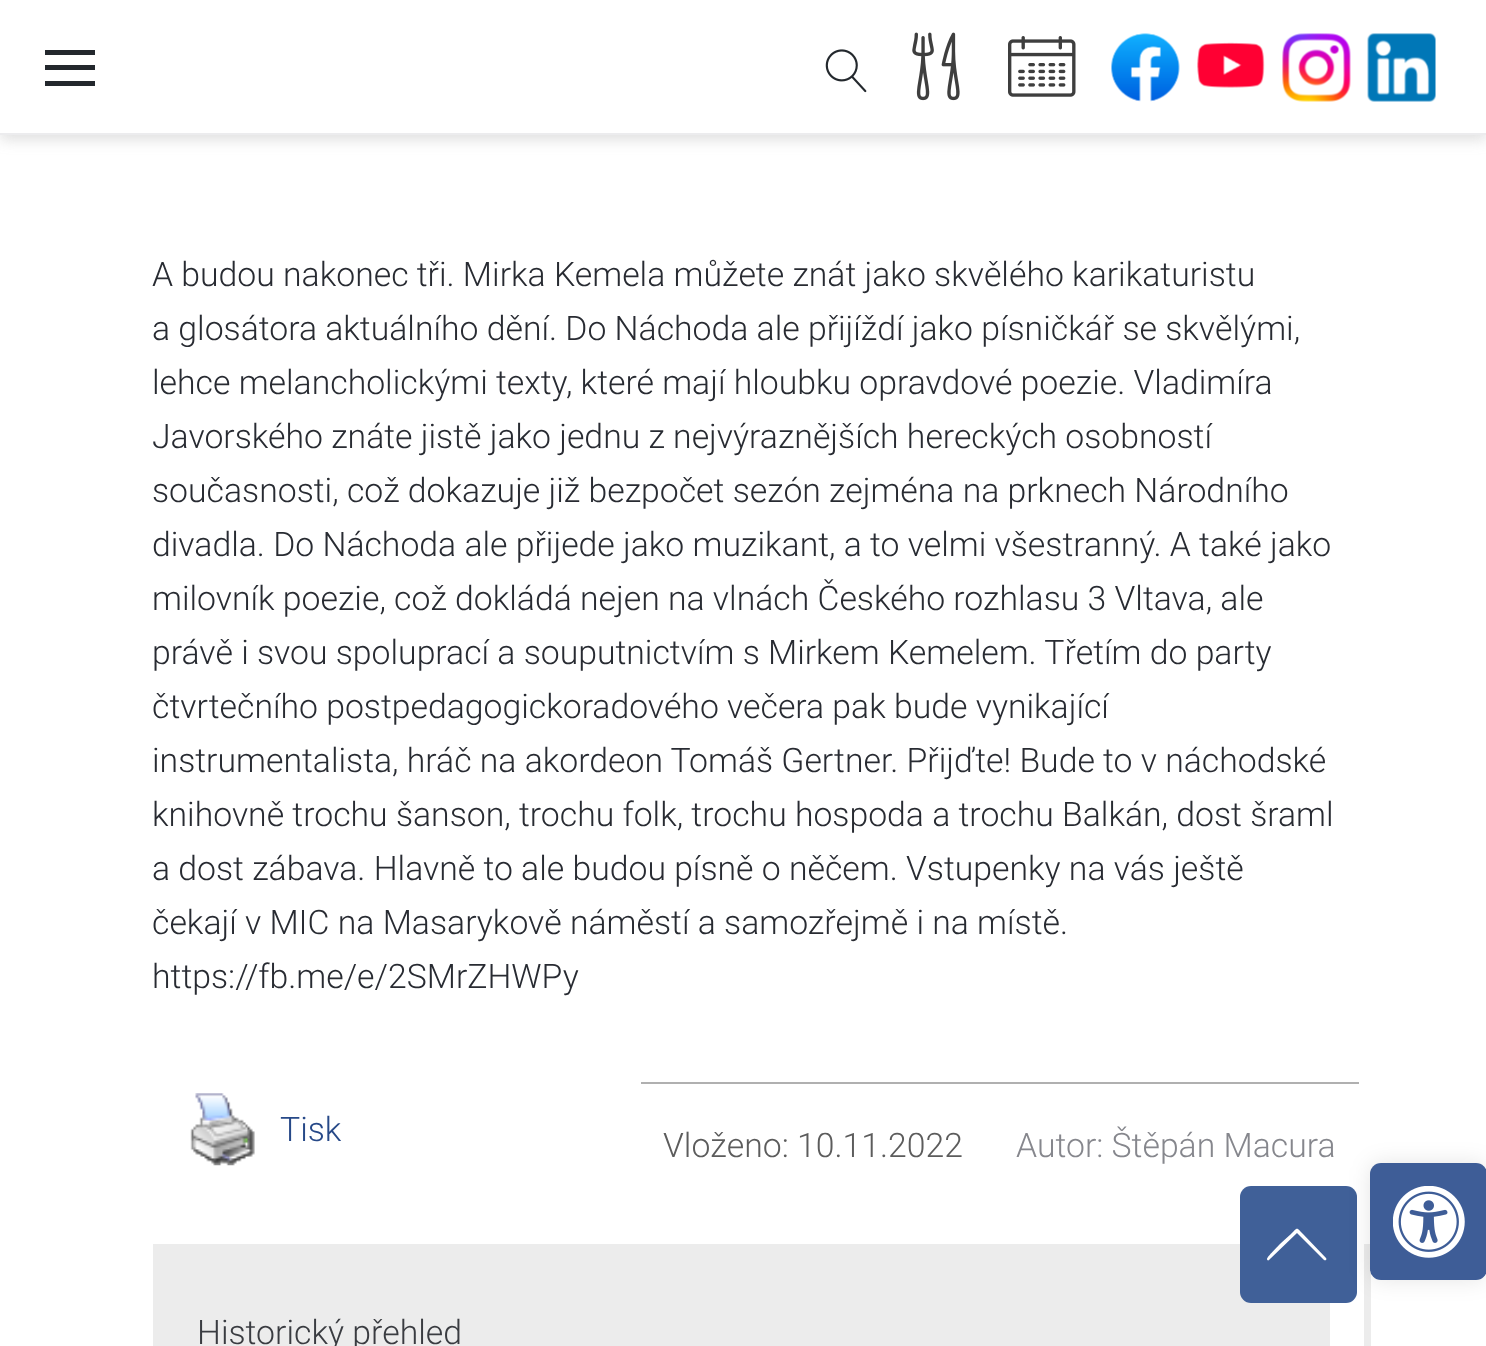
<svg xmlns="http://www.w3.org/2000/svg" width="1486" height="1346">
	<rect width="100%" height="100%" fill="#FFFFFF" />
	<rect x="0" y="5" width="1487" height="135" fill="#888888" fill-opacity="0.26" filter="blur(7px)" />
	<rect x="0" y="0" width="1486" height="133" fill="#FFFFFF" />
	<rect x="0" y="133" width="1486" height="2" fill="#ECECEE" />
	<rect x="45" y="65" width="50" height="5" fill="#23282D" />
	<rect x="45" y="50" width="50" height="5" fill="#23282D" />
	<rect x="45" y="81" width="50" height="5" fill="#23282D" />
	<image x="825" y="49" width="42" height="44" href="assets/img1.png" />
	<image x="912" y="32" width="48" height="69" href="assets/img2.png" />
	<image x="1008" y="36" width="68" height="61" href="assets/img3.png" />
	<image x="1111" y="33" width="69" height="69" href="assets/img4.png" />
	<image x="1197" y="42" width="68" height="46" href="assets/img5.png" />
	<image x="1282" y="33" width="69" height="69" href="assets/img6.png" />
	<image x="1367" y="33" width="69" height="69" href="assets/img7.png" />
	<g font-family="Roboto" font-size="33.75" font-weight="300" fill="#282B32">
		<text x="152" y="286">A budou nakonec tři. Mirka Kemela můžete znát jako skvělého karikaturistu</text>
		<text x="152" y="340">a glosátora aktuálního dění. Do Náchoda ale přijíždí jako písničkář se skvělými,</text>
		<text x="152" y="394">lehce melancholickými texty, které mají hloubku opravdové poezie. Vladimíra</text>
		<text x="152" y="448">Javorského znáte jistě jako jednu z nejvýraznějších hereckých osobností</text>
		<text x="152" y="502">současnosti, což dokazuje již bezpočet sezón zejména na prknech Národního</text>
		<text x="152" y="556">divadla. Do Náchoda ale přijede jako muzikant, a to velmi všestranný. A také jako</text>
		<text x="152" y="610">milovník poezie, což dokládá nejen na vlnách Českého rozhlasu 3 Vltava, ale</text>
		<text x="152" y="664">právě i svou spoluprací a souputnictvím s Mirkem Kemelem. Třetím do party</text>
		<text x="152" y="718">čtvrtečního postpedagogickoradového večera pak bude vynikající</text>
		<text x="152" y="772">instrumentalista, hráč na akordeon Tomáš Gertner. Přijďte! Bude to v náchodské</text>
		<text x="152" y="826">knihovně trochu šanson, trochu folk, trochu hospoda a trochu Balkán, dost šraml</text>
		<text x="152" y="880">a dost zábava. Hlavně to ale budou písně o něčem. Vstupenky na vás ještě</text>
		<text x="152" y="934">čekají v MIC na Masarykově náměstí a samozřejmě i na místě.</text>
		<text x="152" y="988">https://fb.me/e/2SMrZHWPy</text>
	</g>
	<image x="190" y="1093" width="65" height="73" href="assets/img8.png" />
	<text x="280" y="1141" font-family="Roboto" font-size="33.75" font-weight="300" fill="#274988">Tisk</text>
	<rect x="641" y="1082" width="718" height="2" fill="#B0B0B0" />
	<text x="663" y="1157" font-family="Roboto" font-size="33.75" font-weight="300" fill="#5C5C5C">Vloženo: 10.11.2022</text>
	<text x="1016" y="1157" font-family="Roboto" font-size="33.75" font-weight="300" fill="#86878D">Autor: Štěpán Macura</text>
	<rect x="1364" y="1244" width="7" height="102" fill="#ECECEC" />
	<rect x="153" y="1244" width="1177" height="102" fill="#ECECEC" />
	<text x="197" y="1344" font-family="Roboto" font-size="33.75" font-weight="300" fill="#3A3C41">Historický přehled</text>
	<rect x="1240" y="1186" width="117" height="117" rx="11" fill="#3E5E97" fill-opacity="0.99" />
	<rect x="1370" y="1163" width="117" height="117" rx="11" fill="#000000" fill-opacity="0.1" filter="blur(11px)" />
	<rect x="1370" y="1163" width="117" height="117" rx="11" fill="#3E5D97" />
	<image x="1393" y="1186" width="72" height="72" href="assets/img9.png" />
	<path d="M1267 1259C1267 1260 1268 1261 1269 1260L1297 1233L1324 1260C1326 1261 1327 1259 1326 1258L1303 1234C1296 1227 1298 1227 1291 1234L1281 1243C1279 1245 1267 1257 1267 1259Z" fill="#FEFEFE" />
</svg>
